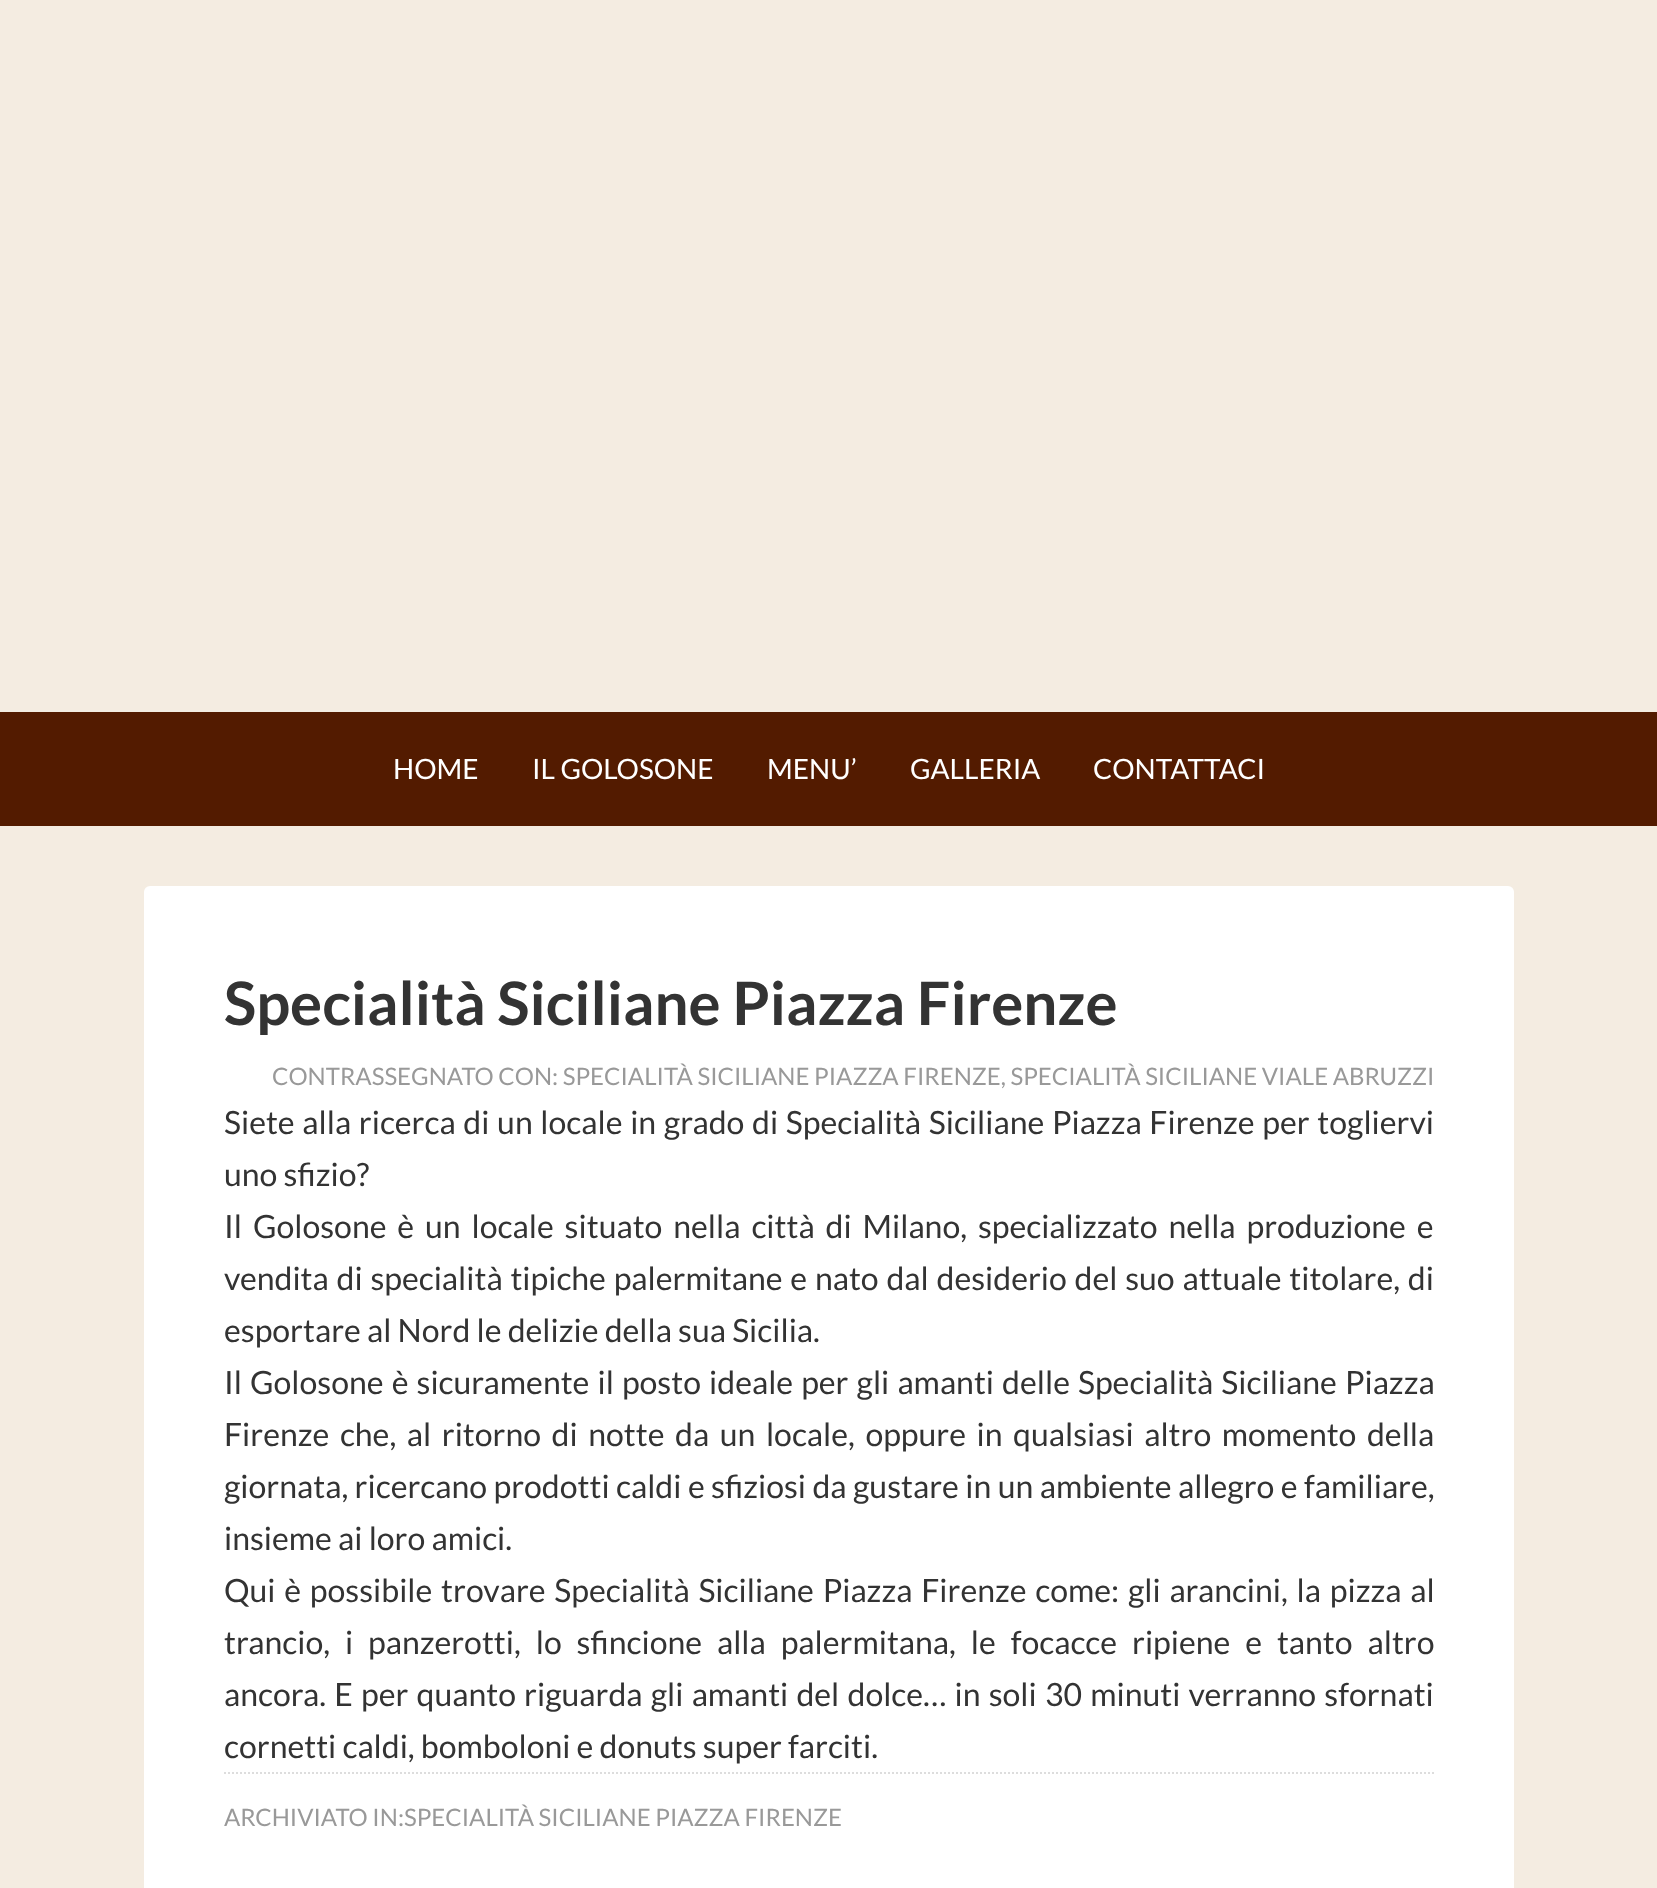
<svg xmlns="http://www.w3.org/2000/svg" width="1657" height="1888">
	<rect width="100%" height="100%" fill="#F4ECE1" />
	<rect x="0" y="712" width="1657" height="114" fill="#531B00" />
	<g font-family="Lato" font-size="28" fill="#FFFFFF">
		<text x="393" y="779">HOME</text>
		<text x="532" y="779">IL GOLOSONE</text>
		<text x="767" y="779">MENU’</text>
		<text x="910" y="779">GALLERIA</text>
		<text x="1093" y="779">CONTATTACI</text>
	</g>
	<rect x="144" y="886" width="1370" height="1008" rx="6" fill="#FFFFFF" />
	<text x="224" y="1025" font-family="Lato" font-size="60" font-weight="700" fill="#333333">Specialità Siciliane Piazza Firenze</text>
	<text x="272" y="1085" font-family="Lato" font-size="24" fill="#999999">CONTRASSEGNATO CON: SPECIALITÀ SICILIANE PIAZZA FIRENZE, SPECIALITÀ SICILIANE VIALE ABRUZZI</text>
	<g font-family="Lato" font-size="32" fill="#333333">
		<text x="224" y="1134" word-spacing="1.5">Siete alla ricerca di un locale in grado di Specialità Siciliane Piazza Firenze per togliervi</text>
		<text x="224" y="1186">uno sfizio?</text>
		<text x="224" y="1238" word-spacing="4.75">Il Golosone è un locale situato nella città di Milano, specializzato nella produzione e</text>
		<text x="224" y="1290" word-spacing="1.6">vendita di specialità tipiche palermitane e nato dal desiderio del suo attuale titolare, di</text>
		<text x="224" y="1342">esportare al Nord le delizie della sua Sicilia.</text>
		<text x="224" y="1394" word-spacing="1.9">Il Golosone è sicuramente il posto ideale per gli amanti delle Specialità Siciliane Piazza</text>
		<text x="224" y="1446" word-spacing="4.4">Firenze che, al ritorno di notte da un locale, oppure in qualsiasi altro momento della</text>
		<text x="224" y="1498" word-spacing="0.25">giornata, ricercano prodotti caldi e sfiziosi da gustare in un ambiente allegro e familiare,</text>
		<text x="224" y="1550">insieme ai loro amici.</text>
		<text x="224" y="1602" word-spacing="2.6">Qui è possibile trovare Specialità Siciliane Piazza Firenze come: gli arancini, la pizza al</text>
		<text x="224" y="1654" word-spacing="8.75">trancio, i panzerotti, lo sfincione alla palermitana, le focacce ripiene e tanto altro</text>
		<text x="224" y="1706" word-spacing="2">ancora. E per quanto riguarda gli amanti del dolce… in soli 30 minuti verranno sfornati</text>
		<text x="224" y="1758">cornetti caldi, bomboloni e donuts super farciti.</text>
	</g>
	<path d="M224 1773H1434" fill="none" stroke="#DDDDDD" stroke-width="2" stroke-dasharray="2 2" />
	<text x="224" y="1826" font-family="Lato" font-size="24" fill="#999999">ARCHIVIATO IN:SPECIALITÀ SICILIANE PIAZZA FIRENZE</text>
</svg>
